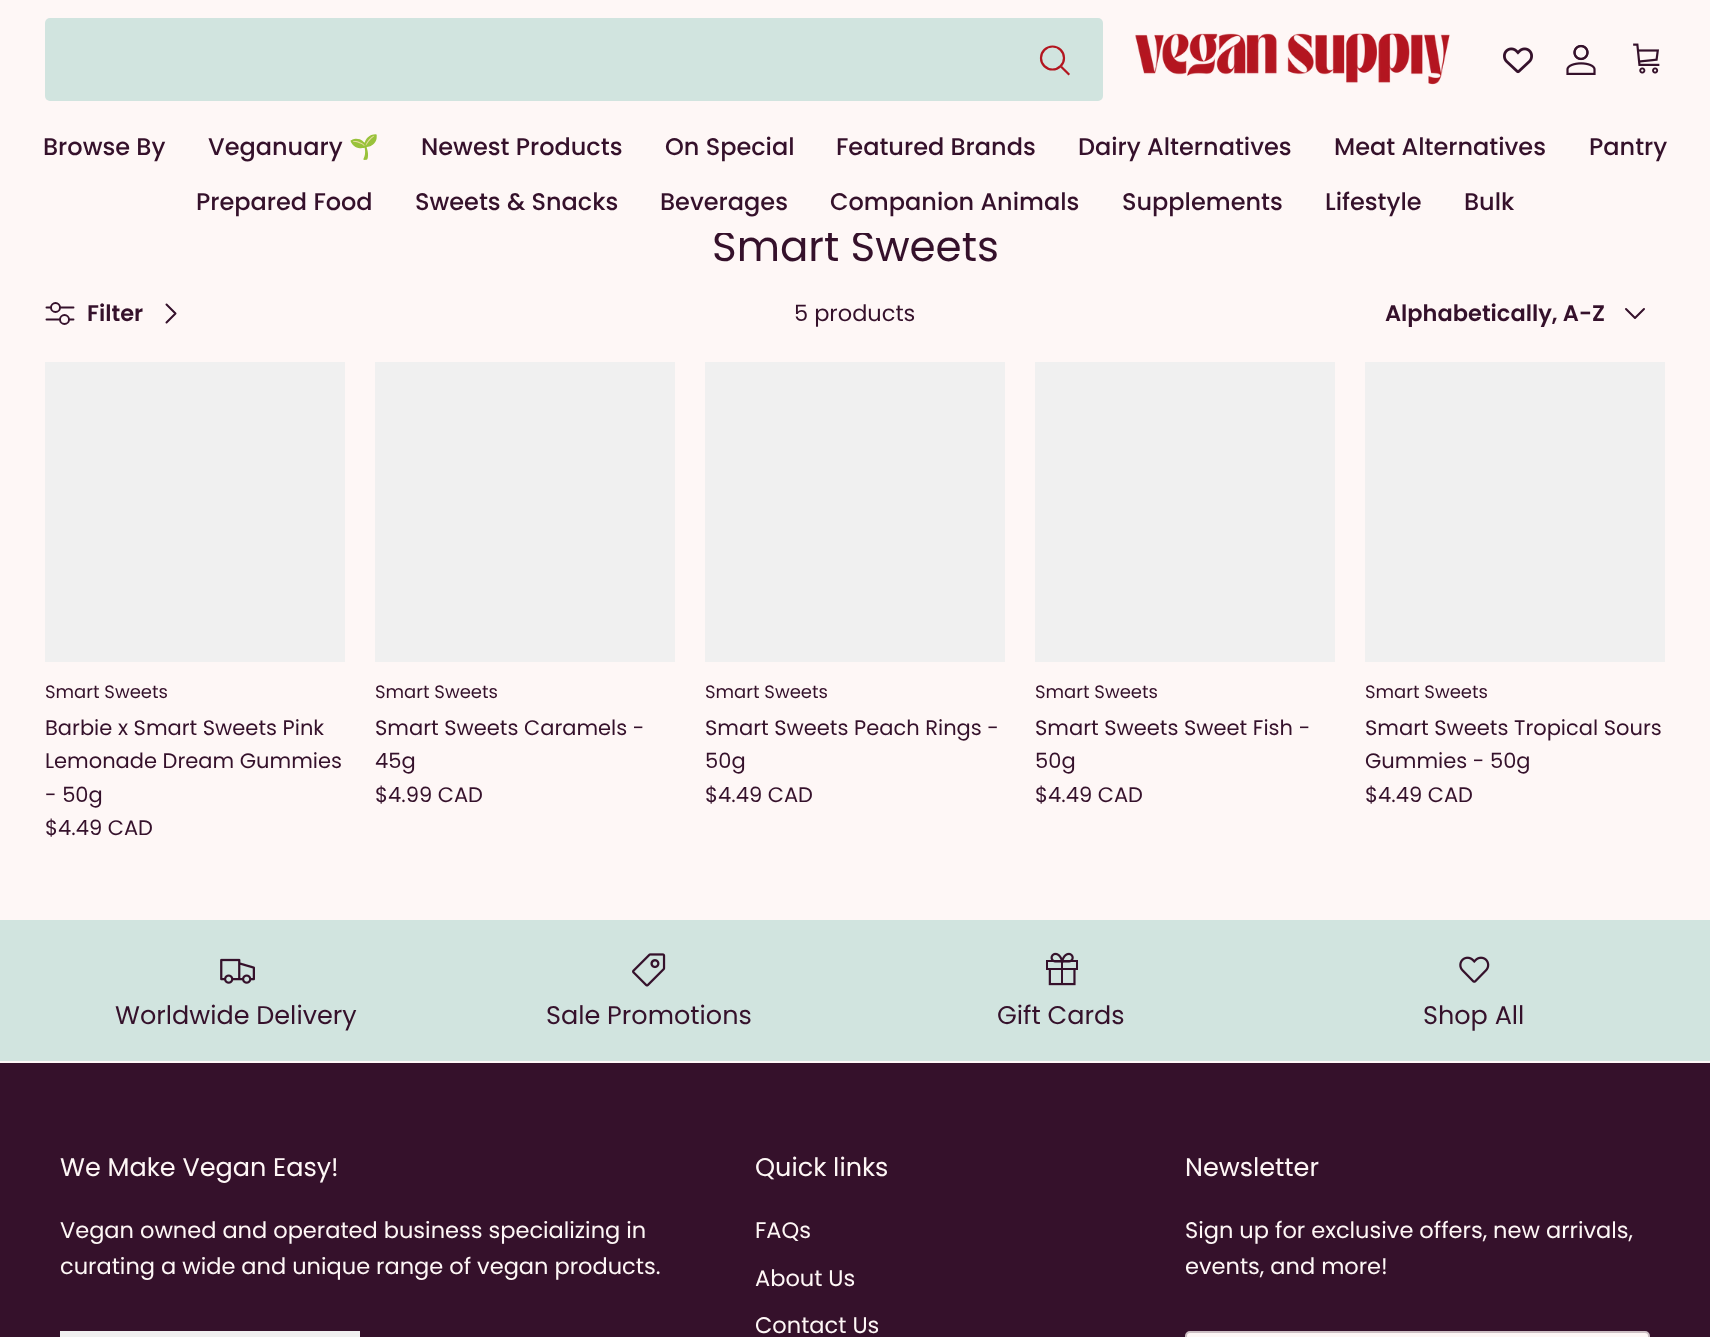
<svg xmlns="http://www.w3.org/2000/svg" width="1710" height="1337">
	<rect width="100%" height="100%" fill="#FEF7F6" />
	<rect x="45" y="18" width="1058" height="83" rx="5" fill="#D1E4DF" />
	<circle cx="1052.5" cy="58" r="11.5" fill="none" stroke="#B3151F" stroke-width="2.2" />
	<path d="M1062 67.5L1068.5 74" fill="none" stroke="#B3151F" stroke-width="2.2" stroke-linecap="square" />
	<image x="1135" y="33" width="315" height="52" href="assets/img1.png" />
	<image x="1503" y="47" width="30" height="27" href="assets/img2.png" />
	<image x="1566" y="44" width="30" height="31" href="assets/img3.png" />
	<image x="1633" y="43" width="27" height="31" href="assets/img4.png" />
	<text x="712" y="261" font-family="Poppins" font-size="42" fill="#35112B">Smart Sweets</text>
	<rect x="717" y="231" width="253" height="2" fill="#FEF7F6" />
	<g font-family="Poppins" font-size="24" font-weight="500" fill="#35112B">
		<text x="43" y="155">Browse By</text>
		<text x="208" y="155">Veganuary</text>
	</g>
	<text x="349" y="155" font-family="Noto Color Emoji" font-size="24" fill="#35112B">🌱</text>
	<g font-family="Poppins" font-size="24" font-weight="500" fill="#35112B">
		<text x="421" y="155">Newest Products</text>
		<text x="665" y="155">On Special</text>
		<text x="836" y="155">Featured Brands</text>
		<text x="1078" y="155">Dairy Alternatives</text>
		<text x="1334" y="155">Meat Alternatives</text>
		<text x="1589" y="155">Pantry</text>
		<text x="196" y="210">Prepared Food</text>
		<text x="415" y="210">Sweets &amp; Snacks</text>
		<text x="660" y="210">Beverages</text>
		<text x="830" y="210">Companion Animals</text>
		<text x="1122" y="210">Supplements</text>
		<text x="1325" y="210">Lifestyle</text>
		<text x="1464" y="210">Bulk</text>
	</g>
	<path d="M46.5 307.5H73.5M46.5 319.5H73.5" fill="none" stroke="#35112B" stroke-width="1.9" stroke-linecap="round" stroke-linejoin="round" />
	<circle cx="55.5" cy="307.5" r="4.5" fill="#FEF7F6" stroke="#35112B" stroke-width="1.9" />
	<circle cx="64.5" cy="319.5" r="4.5" fill="#FEF7F6" stroke="#35112B" stroke-width="1.9" />
	<text x="87" y="321" font-family="Poppins" font-size="22.5" font-weight="600" fill="#35112B">Filter</text>
	<path d="M166.5 322.5L175.5 313.5L166.5 304.5" fill="none" stroke="#35112B" stroke-width="2" stroke-linecap="round" stroke-linejoin="round" />
	<text x="794" y="321" font-family="Poppins" font-size="22.5" fill="#35112B">5 products</text>
	<text x="1385" y="321" font-family="Poppins" font-size="22.5" font-weight="600" fill="#35112B">Alphabetically, A-Z</text>
	<path d="M1626 309L1635 318L1644 309" fill="none" stroke="#35112B" stroke-width="2" stroke-linecap="round" stroke-linejoin="round" />
	<rect x="45" y="362" width="300" height="300" fill="#F0F0F0" />
	<text x="45" y="698" font-family="Poppins" font-size="18" fill="#35112B">Smart Sweets</text>
	<g font-family="Poppins" font-size="21" fill="#35112B">
		<text x="45" y="735">Barbie x Smart Sweets Pink</text>
		<text x="45" y="768">Lemonade Dream Gummies</text>
		<text x="45" y="802">- 50g</text>
		<text x="45" y="835">$4.49 CAD</text>
	</g>
	<rect x="375" y="362" width="300" height="300" fill="#F0F0F0" />
	<text x="375" y="698" font-family="Poppins" font-size="18" fill="#35112B">Smart Sweets</text>
	<g font-family="Poppins" font-size="21" fill="#35112B">
		<text x="375" y="735">Smart Sweets Caramels -</text>
		<text x="375" y="768">45g</text>
		<text x="375" y="802">$4.99 CAD</text>
	</g>
	<rect x="705" y="362" width="300" height="300" fill="#F0F0F0" />
	<text x="705" y="698" font-family="Poppins" font-size="18" fill="#35112B">Smart Sweets</text>
	<g font-family="Poppins" font-size="21" fill="#35112B">
		<text x="705" y="735">Smart Sweets Peach Rings -</text>
		<text x="705" y="768">50g</text>
		<text x="705" y="802">$4.49 CAD</text>
	</g>
	<rect x="1035" y="362" width="300" height="300" fill="#F0F0F0" />
	<text x="1035" y="698" font-family="Poppins" font-size="18" fill="#35112B">Smart Sweets</text>
	<g font-family="Poppins" font-size="21" fill="#35112B">
		<text x="1035" y="735">Smart Sweets Sweet Fish -</text>
		<text x="1035" y="768">50g</text>
		<text x="1035" y="802">$4.49 CAD</text>
	</g>
	<rect x="1365" y="362" width="300" height="300" fill="#F0F0F0" />
	<text x="1365" y="698" font-family="Poppins" font-size="18" fill="#35112B">Smart Sweets</text>
	<g font-family="Poppins" font-size="21" fill="#35112B">
		<text x="1365" y="735">Smart Sweets Tropical Sours</text>
		<text x="1365" y="768">Gummies - 50g</text>
		<text x="1365" y="802">$4.49 CAD</text>
	</g>
	<rect x="0" y="1063" width="1710" height="274" fill="#35112B" />
	<rect x="0" y="920" width="1710" height="141" fill="#D1E4DF" />
	<image x="220" y="958" width="35" height="26" href="assets/img5.png" />
	<text x="115" y="1024" font-family="Poppins" font-size="25.5" fill="#35112B">Worldwide Delivery</text>
	<image x="632" y="953" width="34" height="34" href="assets/img6.png" />
	<text x="546" y="1024" font-family="Poppins" font-size="25.5" fill="#35112B">Sale Promotions</text>
	<image x="1046" y="952" width="32" height="34" href="assets/img7.png" />
	<text x="997" y="1024" font-family="Poppins" font-size="25.5" fill="#35112B">Gift Cards</text>
	<image x="1459" y="956" width="31" height="27" href="assets/img8.png" />
	<text x="1423" y="1024" font-family="Poppins" font-size="25.5" fill="#35112B">Shop All</text>
	<text x="60" y="1176" font-family="Poppins" font-size="25.5" fill="#FEF7F6">We Make Vegan Easy!</text>
	<g font-family="Poppins" font-size="22.5" fill="#FEF7F6">
		<text x="60" y="1238">Vegan owned and operated business specializing in</text>
		<text x="60" y="1274">curating a wide and unique range of vegan products.</text>
	</g>
	<rect x="60" y="1331" width="300" height="6" fill="#F0F0F0" />
	<text x="755" y="1176" font-family="Poppins" font-size="25.5" fill="#FEF7F6">Quick links</text>
	<g font-family="Poppins" font-size="22.5" fill="#FEF7F6">
		<text x="755" y="1238">FAQs</text>
		<text x="755" y="1286">About Us</text>
		<text x="755" y="1333">Contact Us</text>
	</g>
	<text x="1185" y="1176" font-family="Poppins" font-size="25.5" fill="#FEF7F6">Newsletter</text>
	<g font-family="Poppins" font-size="22.5" fill="#FEF7F6">
		<text x="1185" y="1238">Sign up for exclusive offers, new arrivals,</text>
		<text x="1185" y="1274">events, and more!</text>
	</g>
	<rect x="1186" y="1332" width="463" height="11" rx="4" fill="#FEF7F6" stroke="#CCBEC3" stroke-width="2" />
</svg>
